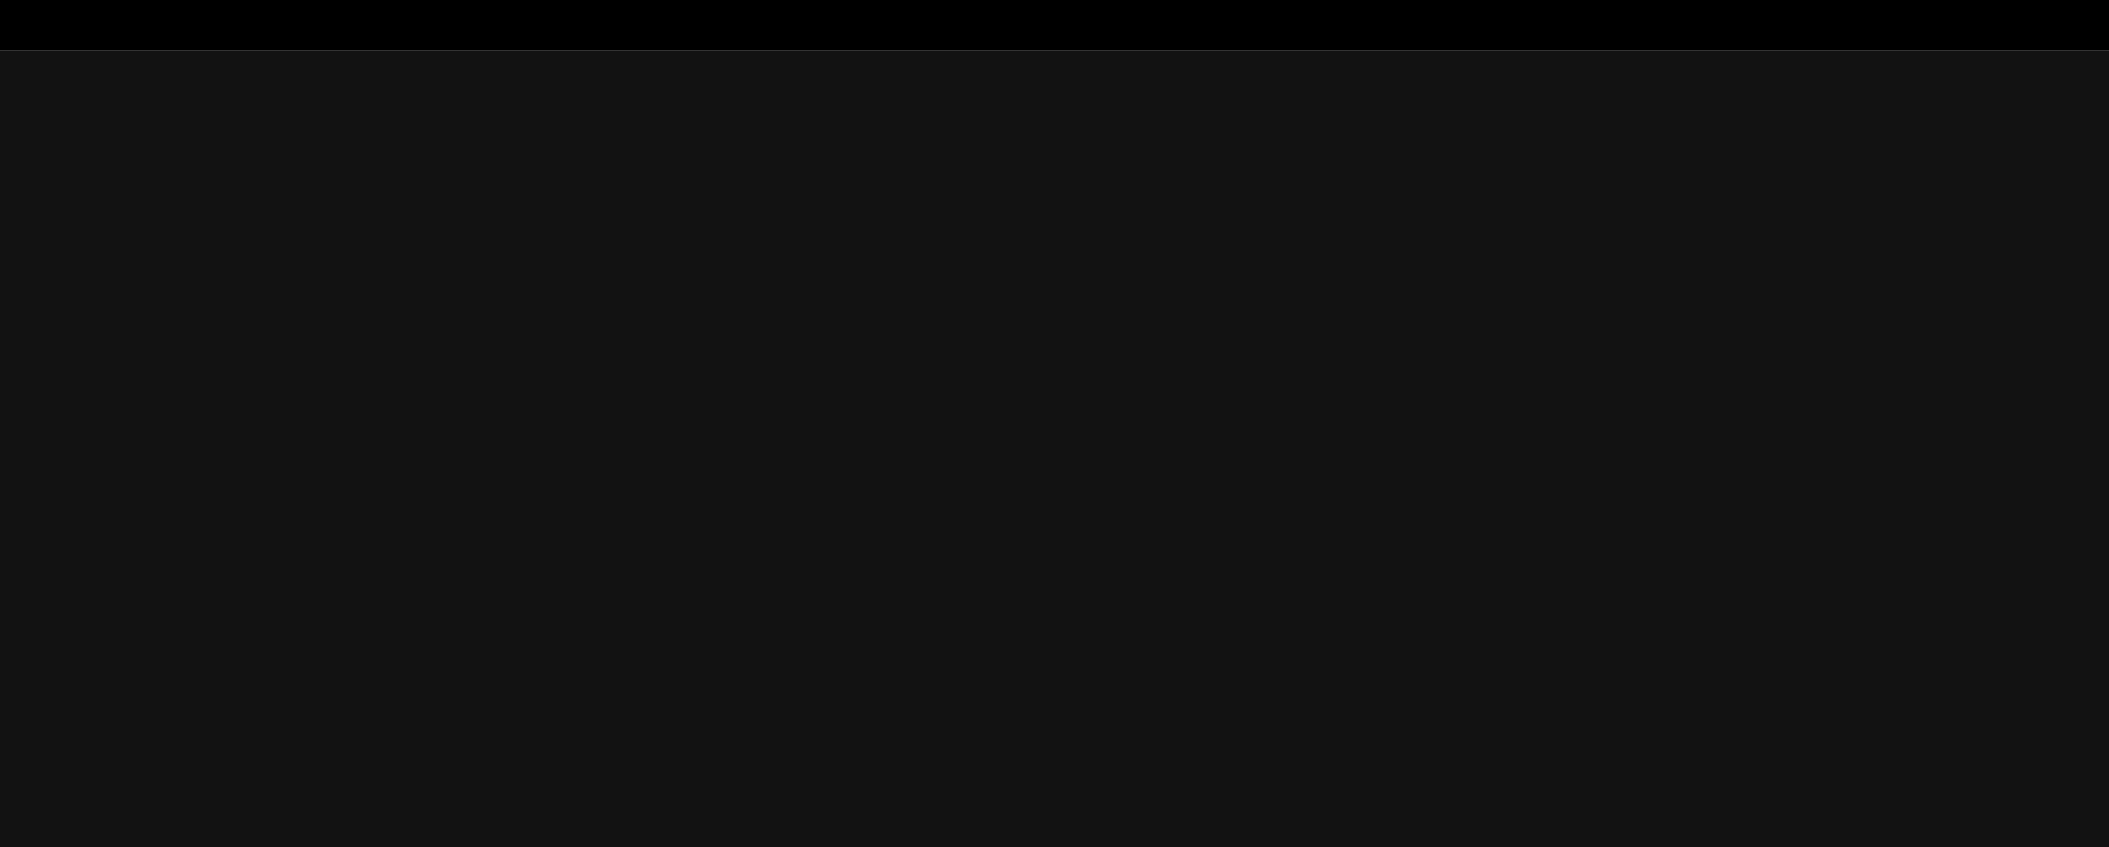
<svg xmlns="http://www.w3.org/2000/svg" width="2109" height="847">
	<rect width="100%" height="100%" fill="#121212" />
	<rect x="0" y="0" width="2109" height="50" fill="#000000" />
	<rect x="0" y="50" width="2109" height="1" fill="#333333" />
</svg>
